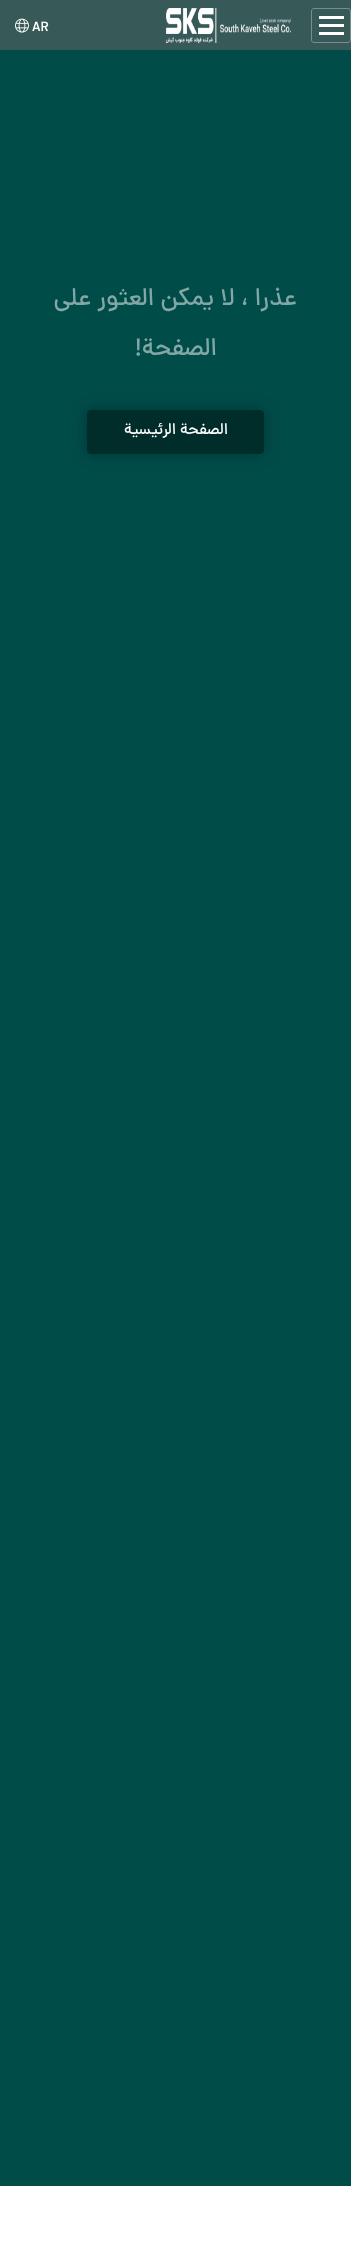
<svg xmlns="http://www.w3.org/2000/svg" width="351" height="2256">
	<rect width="100%" height="100%" fill="#FFFFFF" />
	<rect x="0" y="0" width="351" height="50" fill="#375958" />
	<rect x="311.5" y="8.5" width="39" height="34" rx="2.5" fill="none" stroke="#778E8D" />
	<rect x="319" y="16" width="25" height="3" fill="#FFFFFF" />
	<rect x="319" y="24" width="25" height="3" fill="#FFFFFF" />
	<rect x="319" y="32" width="25" height="3" fill="#FFFFFF" />
	<image x="166" y="8" width="125" height="35" href="assets/img1.png" />
	<text x="32" y="31" font-family="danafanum" font-size="14" font-weight="500" fill="#FFFFFF">AR</text>
	<image x="15" y="18" width="14" height="15" href="assets/img2.png" />
	<rect x="0" y="50" width="351" height="2136" fill="#004C49" />
	<g font-family="danafanum" font-size="25" font-weight="500" direction="rtl" fill="#82A7A6">
		<text x="297" y="305">عذرا ، لا يمكن العثور على</text>
		<text x="217" y="355">الصفحة!</text>
	</g>
	<rect x="87" y="410" width="177" height="44" rx="4" fill="#000000" fill-opacity="0.29" filter="blur(7.5px)" />
	<rect x="87" y="410" width="177" height="44" rx="4" fill="#002C2A" />
	<text x="228" y="434" font-family="danafanum" font-size="16" font-weight="500" direction="rtl" fill="#FFFFFF">الصفحة الرئيسية</text>
</svg>
